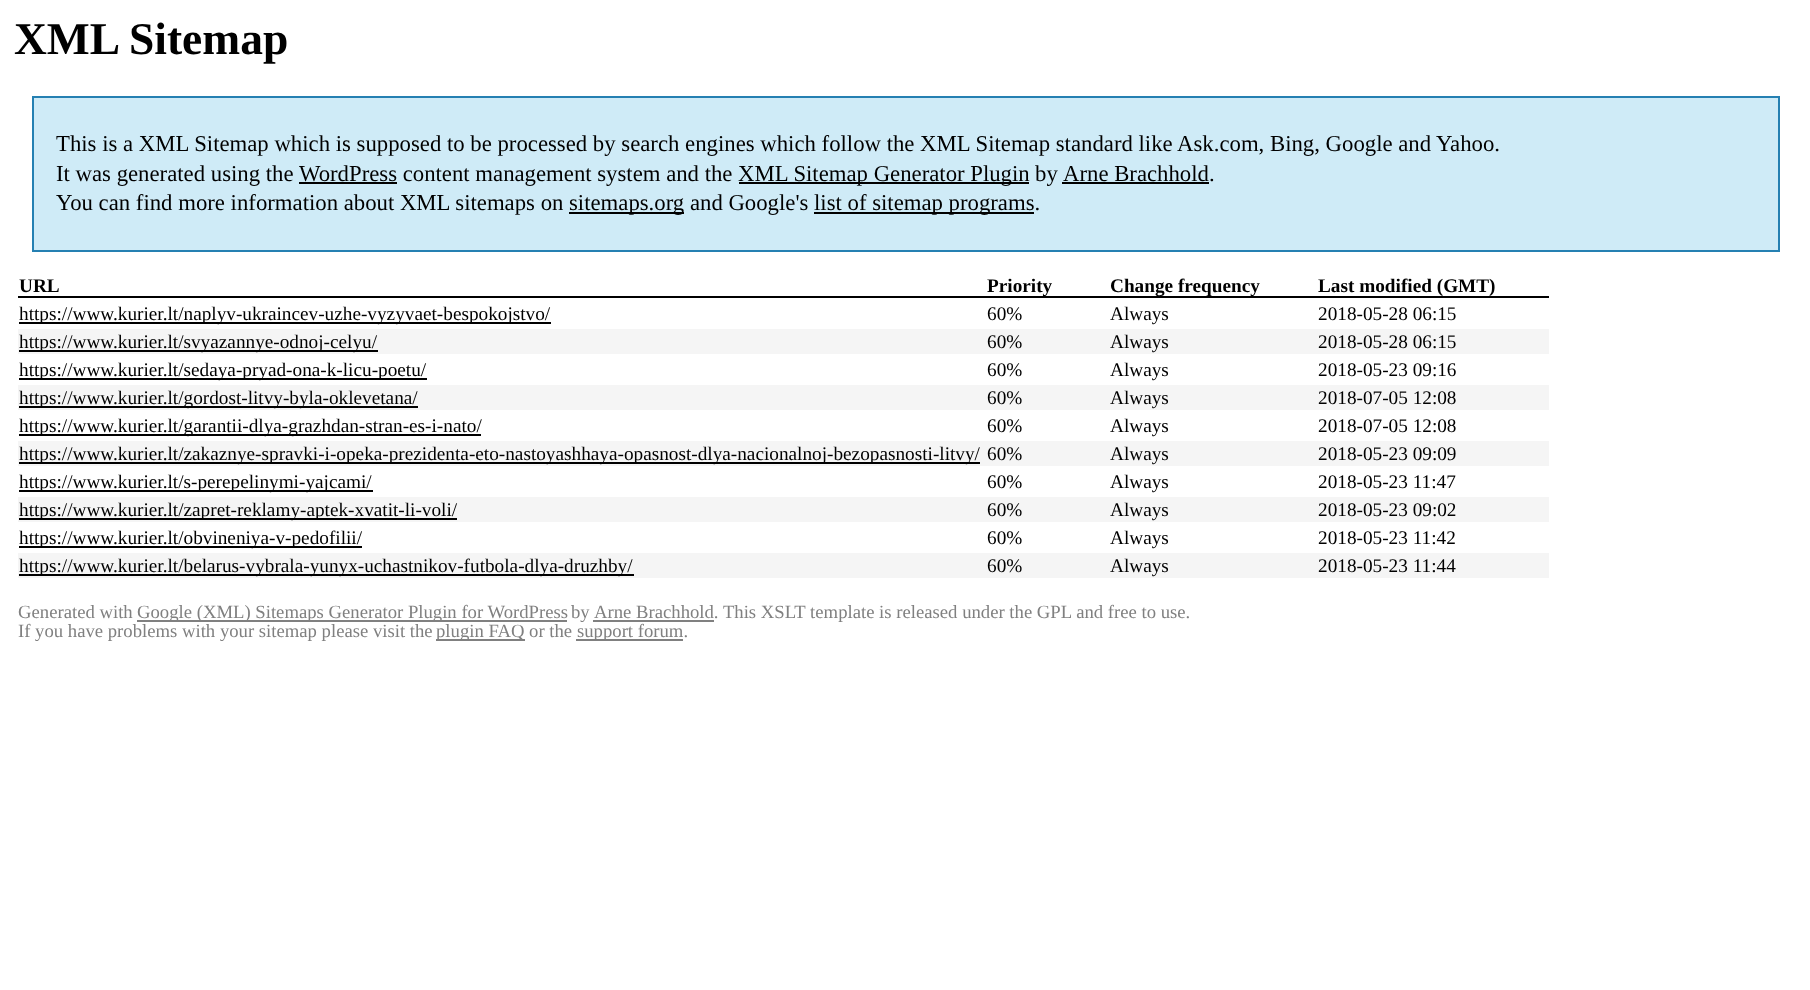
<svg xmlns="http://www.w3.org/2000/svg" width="1810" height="990">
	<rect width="100%" height="100%" fill="#FFFFFF" />
	<text x="14" y="54" font-family="Liberation Serif" font-size="45.5" font-weight="700" fill="#000000">XML Sitemap</text>
	<rect x="33" y="97" width="1746" height="154" fill="#CFEBF7" stroke="#2580B2" stroke-width="2" />
	<g font-family="Liberation Serif" font-size="22.75" fill="#000000">
		<text x="56" y="151">This is a XML Sitemap which is supposed to be processed by search engines which follow the XML Sitemap standard like Ask.com, Bing, Google and Yahoo.</text>
		<text x="56" y="181">It was generated using the</text>
	</g>
	<rect x="299" y="182" width="98" height="2" fill="#000000" />
	<text x="299" y="181" font-family="Liberation Serif" font-size="22.75" fill="#000000">WordPress content management system and the</text>
	<rect x="739" y="182" width="290" height="2" fill="#000000" />
	<g font-family="Liberation Serif" font-size="22.75" fill="#000000">
		<text x="738" y="181">XML Sitemap Generator Plugin</text>
		<text x="1035" y="181">by</text>
		<text x="1063" y="181">Arne Brachhold.</text>
	</g>
	<rect x="1062" y="182" width="147" height="2" fill="#000000" />
	<text x="56" y="210" font-family="Liberation Serif" font-size="22.75" fill="#000000">You can find more information about XML sitemaps on</text>
	<rect x="569" y="212" width="115" height="2" fill="#000000" />
	<text x="569" y="210" font-family="Liberation Serif" font-size="22.75" fill="#000000">sitemaps.org and Google's</text>
	<rect x="814" y="212" width="220" height="2" fill="#000000" />
	<text x="814" y="210" font-family="Liberation Serif" font-size="22.75" fill="#000000">list of sitemap programs.</text>
	<rect x="18" y="296" width="1531" height="2" fill="#000000" />
	<g font-family="Liberation Serif" font-size="19.25" font-weight="700" fill="#000000">
		<text x="19" y="292">URL</text>
		<text x="987" y="292">Priority</text>
		<text x="1110" y="292">Change frequency</text>
		<text x="1318" y="292">Last modified (GMT)</text>
	</g>
	<rect x="19" y="322" width="532" height="2" fill="#000000" />
	<g font-family="Liberation Serif" font-size="19.25" fill="#000000">
		<text x="19" y="320">https://www.kurier.lt/naplyv-ukraincev-uzhe-vyzyvaet-bespokojstvo/</text>
		<text x="987" y="320">60%</text>
		<text x="1110" y="320">Always</text>
		<text x="1318" y="320">2018-05-28 06:15</text>
	</g>
	<rect x="18" y="329" width="1531" height="25" fill="#F5F5F5" />
	<rect x="19" y="350" width="359" height="2" fill="#000000" />
	<g font-family="Liberation Serif" font-size="19.25" fill="#000000">
		<text x="19" y="348">https://www.kurier.lt/svyazannye-odnoj-celyu/</text>
		<text x="987" y="348">60%</text>
		<text x="1110" y="348">Always</text>
		<text x="1318" y="348">2018-05-28 06:15</text>
	</g>
	<rect x="19" y="378" width="408" height="2" fill="#000000" />
	<g font-family="Liberation Serif" font-size="19.25" fill="#000000">
		<text x="19" y="376">https://www.kurier.lt/sedaya-pryad-ona-k-licu-poetu/</text>
		<text x="987" y="376">60%</text>
		<text x="1110" y="376">Always</text>
		<text x="1318" y="376">2018-05-23 09:16</text>
	</g>
	<rect x="18" y="385" width="1531" height="25" fill="#F5F5F5" />
	<rect x="19" y="406" width="399" height="2" fill="#000000" />
	<g font-family="Liberation Serif" font-size="19.25" fill="#000000">
		<text x="19" y="404">https://www.kurier.lt/gordost-litvy-byla-oklevetana/</text>
		<text x="987" y="404">60%</text>
		<text x="1110" y="404">Always</text>
		<text x="1318" y="404">2018-07-05 12:08</text>
	</g>
	<rect x="19" y="434" width="462" height="2" fill="#000000" />
	<g font-family="Liberation Serif" font-size="19.25" fill="#000000">
		<text x="19" y="432">https://www.kurier.lt/garantii-dlya-grazhdan-stran-es-i-nato/</text>
		<text x="987" y="432">60%</text>
		<text x="1110" y="432">Always</text>
		<text x="1318" y="432">2018-07-05 12:08</text>
	</g>
	<rect x="18" y="441" width="1531" height="25" fill="#F5F5F5" />
	<rect x="19" y="462" width="961" height="2" fill="#000000" />
	<g font-family="Liberation Serif" font-size="19.25" fill="#000000">
		<text x="19" y="460">https://www.kurier.lt/zakaznye-spravki-i-opeka-prezidenta-eto-nastoyashhaya-opasnost-dlya-nacionalnoj-bezopasnosti-litvy/</text>
		<text x="987" y="460">60%</text>
		<text x="1110" y="460">Always</text>
		<text x="1318" y="460">2018-05-23 09:09</text>
	</g>
	<rect x="19" y="490" width="354" height="2" fill="#000000" />
	<g font-family="Liberation Serif" font-size="19.25" fill="#000000">
		<text x="19" y="488">https://www.kurier.lt/s-perepelinymi-yajcami/</text>
		<text x="987" y="488">60%</text>
		<text x="1110" y="488">Always</text>
		<text x="1318" y="488">2018-05-23 11:47</text>
	</g>
	<rect x="18" y="497" width="1531" height="25" fill="#F5F5F5" />
	<rect x="19" y="518" width="438" height="2" fill="#000000" />
	<g font-family="Liberation Serif" font-size="19.25" fill="#000000">
		<text x="19" y="516">https://www.kurier.lt/zapret-reklamy-aptek-xvatit-li-voli/</text>
		<text x="987" y="516">60%</text>
		<text x="1110" y="516">Always</text>
		<text x="1318" y="516">2018-05-23 09:02</text>
	</g>
	<rect x="19" y="546" width="343" height="2" fill="#000000" />
	<g font-family="Liberation Serif" font-size="19.25" fill="#000000">
		<text x="19" y="544">https://www.kurier.lt/obvineniya-v-pedofilii/</text>
		<text x="987" y="544">60%</text>
		<text x="1110" y="544">Always</text>
		<text x="1318" y="544">2018-05-23 11:42</text>
	</g>
	<rect x="18" y="553" width="1531" height="25" fill="#F5F5F5" />
	<rect x="19" y="574" width="615" height="2" fill="#000000" />
	<g font-family="Liberation Serif" font-size="19.25" fill="#000000">
		<text x="19" y="572">https://www.kurier.lt/belarus-vybrala-yunyx-uchastnikov-futbola-dlya-druzhby/</text>
		<text x="987" y="572">60%</text>
		<text x="1110" y="572">Always</text>
		<text x="1318" y="572">2018-05-23 11:44</text>
	</g>
	<text x="18" y="618" font-family="Liberation Serif" font-size="18.7" fill="#808080">Generated with</text>
	<rect x="137" y="620" width="430" height="2" fill="#808080" />
	<g font-family="Liberation Serif" font-size="18.7" fill="#808080">
		<text x="137" y="618">Google (XML) Sitemaps Generator Plugin for WordPress</text>
		<text x="571" y="618">by</text>
	</g>
	<rect x="593" y="620" width="121" height="2" fill="#808080" />
	<g font-family="Liberation Serif" font-size="18.7" fill="#808080">
		<text x="594" y="618">Arne Brachhold. This XSLT template is released under the GPL and free to use.</text>
		<text x="18" y="637">If you have problems with your sitemap please visit the</text>
	</g>
	<rect x="436" y="639" width="89" height="2" fill="#808080" />
	<text x="436" y="637" font-family="Liberation Serif" font-size="18.7" fill="#808080">plugin FAQ or the</text>
	<rect x="576" y="639" width="107" height="2" fill="#808080" />
	<text x="577" y="637" font-family="Liberation Serif" font-size="18.7" fill="#808080">support forum.</text>
</svg>
